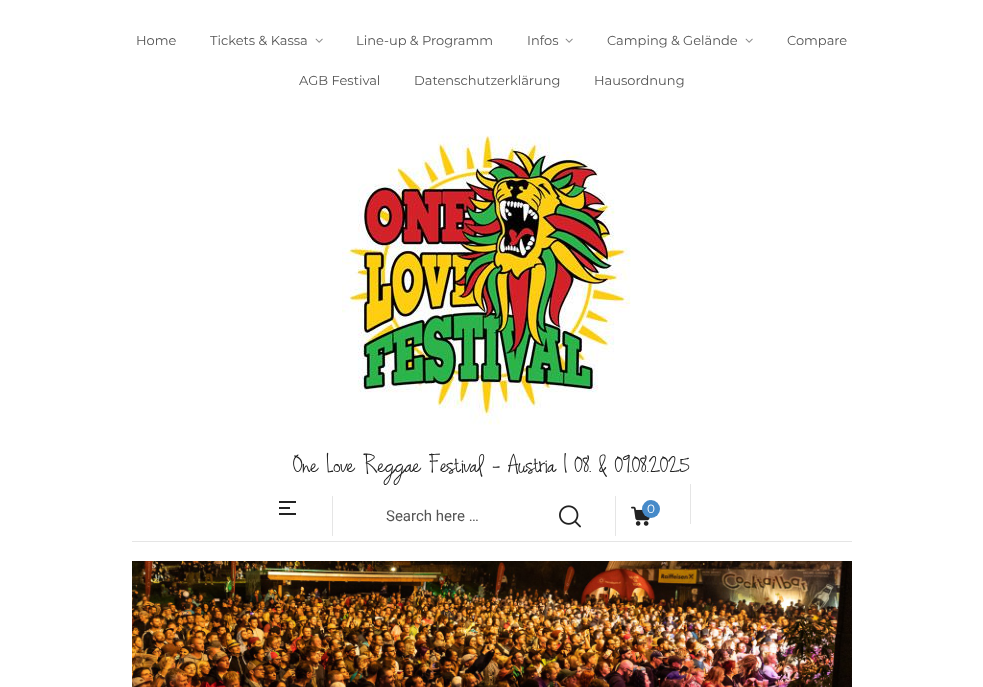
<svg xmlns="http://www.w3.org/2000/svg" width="983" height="687">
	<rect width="100%" height="100%" fill="#FFFFFF" />
	<g font-family="Montserrat" font-size="13" fill="#555555">
		<text x="136" y="45">Home</text>
		<text x="210" y="45">Tickets &amp; Kassa</text>
	</g>
	<image x="315" y="38" width="8" height="5" href="assets/img1.png" />
	<g font-family="Montserrat" font-size="13" fill="#555555">
		<text x="356" y="45">Line-up &amp; Programm</text>
		<text x="527" y="45">Infos</text>
	</g>
	<image x="565" y="38" width="8" height="5" href="assets/img1.png" />
	<text x="607" y="45" font-family="Montserrat" font-size="13" fill="#555555">Camping &amp; Gelände</text>
	<image x="745" y="38" width="8" height="5" href="assets/img1.png" />
	<g font-family="Montserrat" font-size="13" fill="#555555">
		<text x="787" y="45">Compare</text>
		<text x="299" y="85">AGB Festival</text>
		<text x="414" y="85">Datenschutzerklärung</text>
		<text x="594" y="85">Hausordnung</text>
	</g>
	<rect x="132" y="541" width="720" height="1" fill="#E5E5E5" />
	<image x="342" y="135" width="289" height="290" href="assets/img2.png" />
	<text x="293" y="472" font-family="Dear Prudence" font-size="24" fill="#222222">One Love Reggae Festival - Austria I 08. &amp; 09.08.2025</text>
	<rect x="279" y="501" width="17" height="2" fill="#222222" />
	<rect x="279" y="507" width="11" height="2" fill="#222222" />
	<rect x="279" y="513" width="17" height="2" fill="#222222" />
	<rect x="332" y="496" width="1" height="40" fill="#E5E5E5" />
	<text x="386" y="521" font-family="Roboto" font-size="15" fill="#555555">Search here …</text>
	<image x="559" y="505" width="22" height="23" href="assets/img3.png" />
	<rect x="615" y="496" width="1" height="40" fill="#E5E5E5" />
	<image x="631" y="506" width="19" height="20" href="assets/img4.png" />
	<circle cx="651" cy="509" r="9" fill="#468AC9" />
	<text x="647" y="513" font-family="Montserrat" font-size="12" fill="#FFFFFF">0</text>
	<rect x="690" y="484" width="1" height="40" fill="#E5E5E5" />
	<image x="132" y="561" width="720" height="126" href="assets/img5.png" />
</svg>
